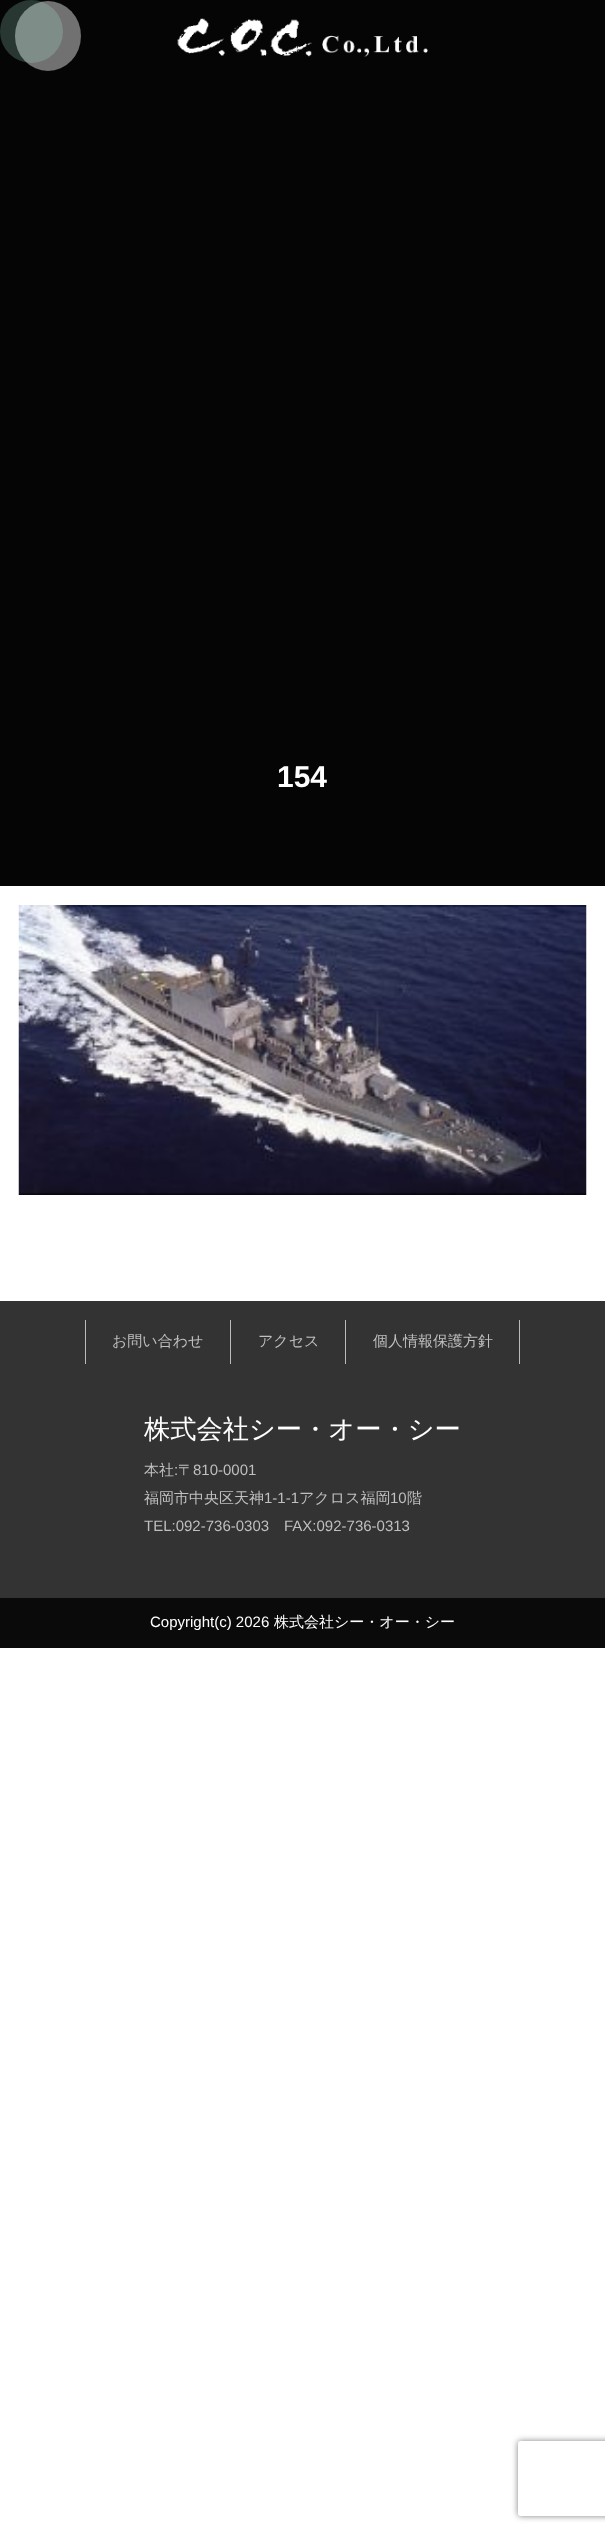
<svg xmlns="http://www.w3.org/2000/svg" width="605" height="2533">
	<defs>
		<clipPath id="clip1"><path d="M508 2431H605V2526H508ZM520.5 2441H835.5C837 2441 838 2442 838 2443.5V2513.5C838 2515 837 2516 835.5 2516H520.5C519 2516 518 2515 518 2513.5V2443.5C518 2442 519 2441 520.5 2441Z" clip-rule="evenodd" /></clipPath>
	</defs>
	<rect width="100%" height="100%" fill="#FFFFFF" />
	<rect x="0" y="0" width="605" height="886" fill="#050505" />
	<ellipse cx="48" cy="36" rx="33" ry="35" fill="#717171" />
	<circle cx="31.5" cy="31.5" r="31.5" fill="#B3FFE6" fill-opacity="0.2" />
	<image x="177" y="18" width="251" height="39" href="assets/img1.png" />
	<text x="277" y="787" font-family="Liberation Sans" font-size="30" font-weight="700" fill="#FFFFFF">154</text>
	<image x="18" y="905" width="569" height="290" href="assets/img2.png" />
	<rect x="0" y="1301" width="605" height="297" fill="#333333" />
	<rect x="230" y="1320" width="1" height="44" fill="#BBBBBB" />
	<rect x="85" y="1320" width="1" height="44" fill="#BBBBBB" />
	<text x="112" y="1346" font-family="WenQuanYi Zen Hei" font-size="15" font-weight="500" fill="#C1BFBF">お問い合わせ</text>
	<rect x="345" y="1320" width="1" height="44" fill="#BBBBBB" />
	<text x="258" y="1346" font-family="WenQuanYi Zen Hei" font-size="15" font-weight="500" fill="#C1BFBF">アクセス</text>
	<rect x="519" y="1320" width="1" height="44" fill="#BBBBBB" />
	<text x="373" y="1346" font-family="WenQuanYi Zen Hei" font-size="15" font-weight="500" fill="#C1BFBF">個人情報保護方針</text>
	<text x="144" y="1438" font-family="WenQuanYi Zen Hei" font-size="26.25" font-weight="500" fill="#FFFFFF">株式会社シー・オー・シー</text>
	<text x="144" y="1475" font-family="WenQuanYi Zen Hei" font-size="15" font-weight="500" fill="#C1BFBF">本社</text>
	<text x="174" y="1475" font-family="Liberation Sans" font-size="15" fill="#C1BFBF">:</text>
	<text x="178" y="1475" font-family="WenQuanYi Zen Hei" font-size="15" font-weight="500" fill="#C1BFBF">〒</text>
	<text x="193" y="1475" font-family="Liberation Sans" font-size="15" fill="#C1BFBF">810-0001</text>
	<text x="144" y="1503" font-family="WenQuanYi Zen Hei" font-size="15" font-weight="500" fill="#C1BFBF">福岡市中央区天神</text>
	<text x="264" y="1503" font-family="Liberation Sans" font-size="15" fill="#C1BFBF">1-1-1</text>
	<text x="299" y="1503" font-family="WenQuanYi Zen Hei" font-size="15" font-weight="500" fill="#C1BFBF">アクロス福岡</text>
	<text x="390" y="1503" font-family="Liberation Sans" font-size="15" fill="#C1BFBF">10</text>
	<text x="407" y="1503" font-family="WenQuanYi Zen Hei" font-size="15" font-weight="500" fill="#C1BFBF">階</text>
	<g font-family="Liberation Sans" font-size="15" fill="#C1BFBF">
		<text x="144" y="1531">TEL:092-736-0303</text>
		<text x="284" y="1531">FAX:092-736-0313</text>
	</g>
	<rect x="0" y="1598" width="605" height="50" fill="#0A0A0A" />
	<text x="150" y="1627" font-family="Liberation Sans" font-size="15" fill="#FFFFFF">Copyright(c) 2026</text>
	<text x="274" y="1627" font-family="WenQuanYi Zen Hei" font-size="15" font-weight="500" fill="#FFFFFF">株式会社シー・オー・シー</text>
	<g clip-path="url(#clip1)">
		<rect x="518" y="2441" width="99" height="75" rx="2.5" fill="#808080" filter="blur(3px)" />
	</g>
</svg>
